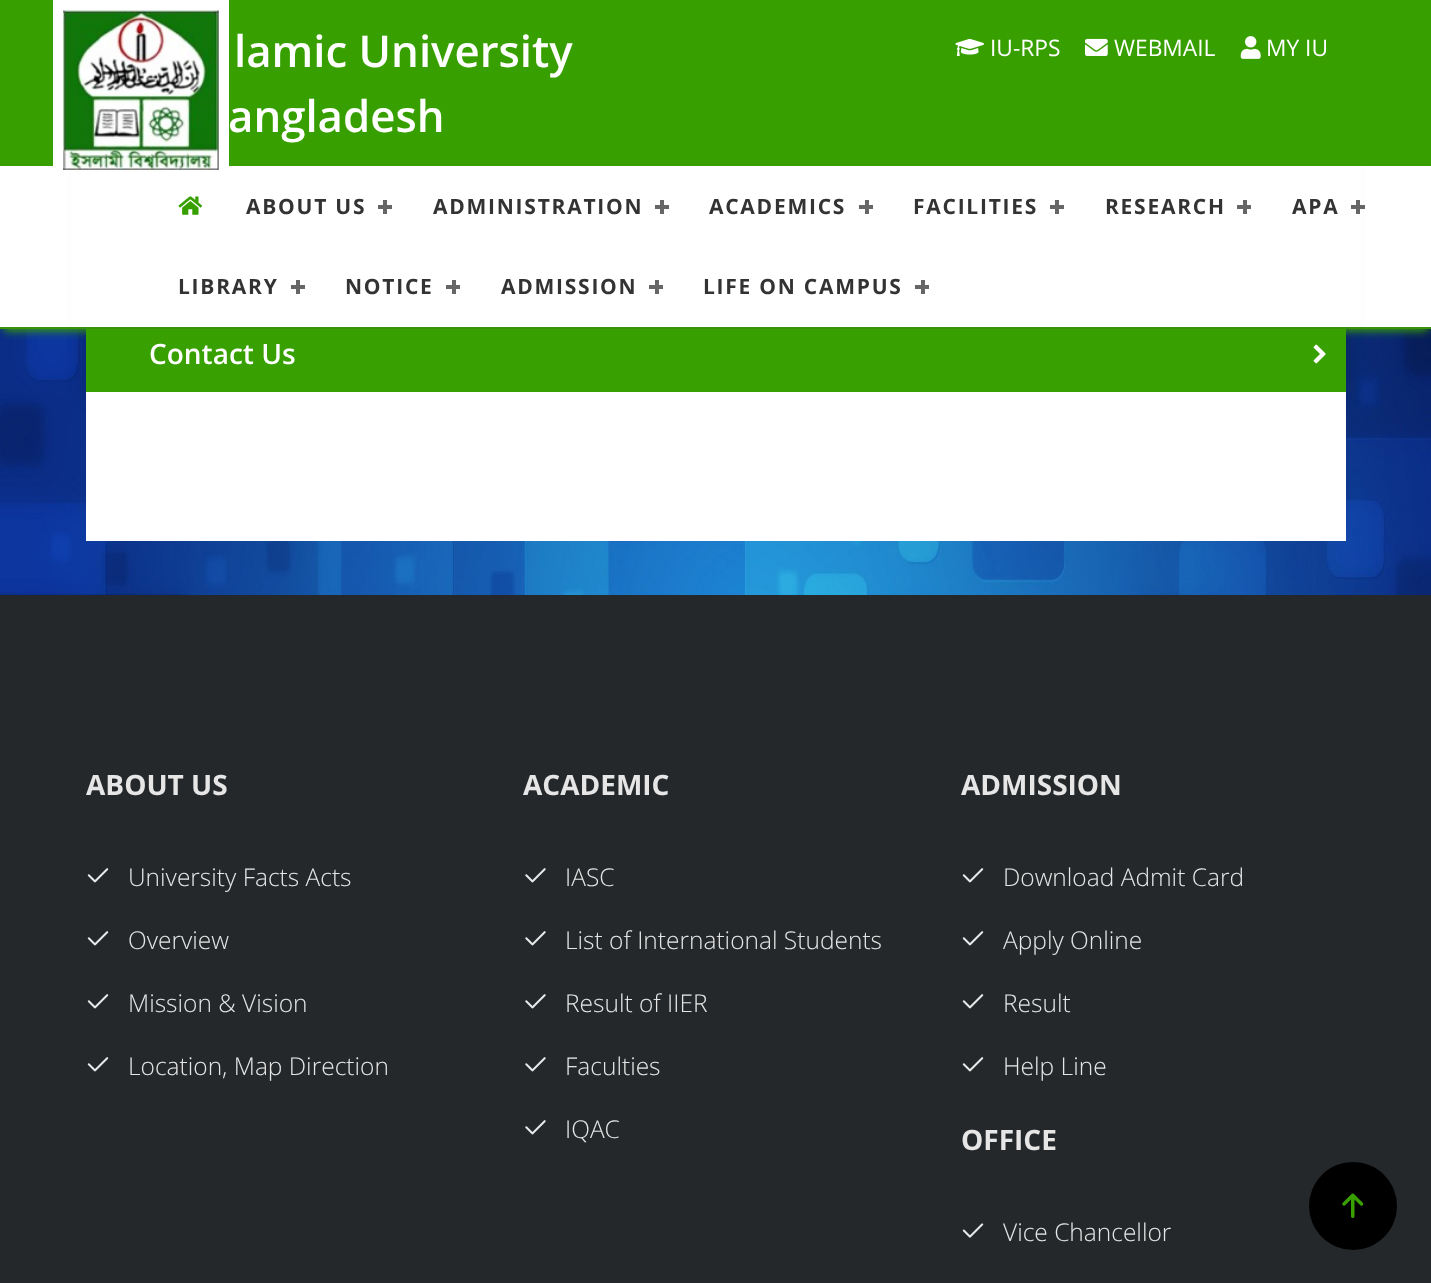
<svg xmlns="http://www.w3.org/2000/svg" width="1431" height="1283">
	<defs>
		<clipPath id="clip1"><rect x="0" y="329" width="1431" height="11" /></clipPath>
	</defs>
	<rect width="100%" height="100%" fill="#FFFFFF" />
	<image x="0" y="329" width="1431" height="266" href="assets/img6.png" />
	<rect x="86" y="-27" width="1260" height="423" fill="#000000" fill-opacity="0.2" filter="blur(9px)" />
	<rect x="71" y="166" width="1290" height="161" fill="#FFFFFF" />
	<rect x="0" y="0" width="1431" height="166" fill="#37A000" />
	<rect x="86" y="329" width="1260" height="63" fill="#38A001" />
	<image x="1313" y="344" width="13" height="20" href="assets/img7.png" />
	<g clip-path="url(#clip1)">
		<rect x="4" y="175" width="1424" height="156" fill="#37A000" filter="blur(4.5px)" />
	</g>
	<rect x="53" y="0" width="176" height="166" fill="#FFFFFF" />
	<image x="63" y="10" width="156" height="160" href="assets/img1.png" />
	<g font-family="Open Sans" font-size="43.75" font-weight="600" fill="#FFFFFF">
		<text x="234" y="67">lamic University</text>
		<text x="228" y="132">angladesh</text>
	</g>
	<image x="955" y="38" width="29" height="18" href="assets/img2.png" />
	<text x="990" y="56" font-family="Open Sans" font-size="22.75" fill="#FFFFFF">IU-RPS</text>
	<image x="1085" y="38" width="23" height="18" href="assets/img3.png" />
	<text x="1114" y="56" font-family="Open Sans" font-size="22.75" fill="#FFFFFF">WEBMAIL</text>
	<image x="1240" y="36" width="21" height="23" href="assets/img4.png" />
	<text x="1266" y="56" font-family="Open Sans" font-size="22.75" fill="#FFFFFF">MY IU</text>
	<rect x="0" y="327" width="1431" height="2" fill="#389309" />
	<image x="178" y="196" width="25" height="19" href="assets/img5.png" />
	<text x="246" y="214" font-family="Open Sans" font-size="21" font-weight="700" letter-spacing="1.75" fill="#333333">ABOUT US</text>
	<rect x="383" y="200" width="4" height="14" fill="#666666" />
	<rect x="378" y="205" width="14" height="4" fill="#666666" />
	<text x="433" y="214" font-family="Open Sans" font-size="21" font-weight="700" letter-spacing="1.75" fill="#333333">ADMINISTRATION</text>
	<rect x="660" y="200" width="4" height="14" fill="#666666" />
	<rect x="655" y="205" width="14" height="4" fill="#666666" />
	<text x="709" y="214" font-family="Open Sans" font-size="21" font-weight="700" letter-spacing="1.75" fill="#333333">ACADEMICS</text>
	<rect x="865" y="200" width="4" height="14" fill="#666666" />
	<rect x="859" y="205" width="14" height="4" fill="#666666" />
	<text x="913" y="214" font-family="Open Sans" font-size="21" font-weight="700" letter-spacing="1.75" fill="#333333">FACILITIES</text>
	<rect x="1055" y="200" width="4" height="14" fill="#666666" />
	<rect x="1050" y="205" width="14" height="4" fill="#666666" />
	<text x="1105" y="214" font-family="Open Sans" font-size="21" font-weight="700" letter-spacing="1.75" fill="#333333">RESEARCH</text>
	<rect x="1243" y="200" width="4" height="14" fill="#666666" />
	<rect x="1237" y="205" width="14" height="4" fill="#666666" />
	<text x="1292" y="214" font-family="Open Sans" font-size="21" font-weight="700" letter-spacing="1.75" fill="#333333">APA</text>
	<rect x="1356" y="200" width="4" height="14" fill="#666666" />
	<rect x="1351" y="205" width="14" height="4" fill="#666666" />
	<text x="178" y="294" font-family="Open Sans" font-size="21" font-weight="700" letter-spacing="1.75" fill="#333333">LIBRARY</text>
	<rect x="296" y="280" width="4" height="14" fill="#666666" />
	<rect x="291" y="285" width="14" height="4" fill="#666666" />
	<text x="345" y="294" font-family="Open Sans" font-size="21" font-weight="700" letter-spacing="1.75" fill="#333333">NOTICE</text>
	<rect x="452" y="280" width="4" height="14" fill="#666666" />
	<rect x="446" y="285" width="14" height="4" fill="#666666" />
	<text x="501" y="294" font-family="Open Sans" font-size="21" font-weight="700" letter-spacing="1.75" fill="#333333">ADMISSION</text>
	<rect x="655" y="280" width="4" height="14" fill="#666666" />
	<rect x="649" y="285" width="14" height="4" fill="#666666" />
	<text x="703" y="294" font-family="Open Sans" font-size="21" font-weight="700" letter-spacing="1.75" fill="#333333">LIFE ON CAMPUS</text>
	<rect x="921" y="280" width="4" height="14" fill="#666666" />
	<rect x="915" y="285" width="14" height="4" fill="#666666" />
	<text x="149" y="364" font-family="Open Sans" font-size="28" font-weight="600" fill="#FFFFFF">Contact Us</text>
	<rect x="86" y="392" width="1260" height="149" fill="#FFFFFF" />
	<rect x="0" y="595" width="1431" height="688" fill="#25282A" />
	<text x="86" y="795" font-family="Open Sans" font-size="28" font-weight="700" fill="#E6E6E6">ABOUT US</text>
	<image x="87" y="868" width="22" height="15" href="assets/img8.png" />
	<text x="128" y="886" font-family="Open Sans" font-size="24.5" font-weight="300" fill="#E6E6E6">University Facts Acts</text>
	<image x="87" y="931" width="22" height="15" href="assets/img8.png" />
	<text x="128" y="949" font-family="Open Sans" font-size="24.5" font-weight="300" fill="#E6E6E6">Overview</text>
	<image x="87" y="994" width="22" height="15" href="assets/img8.png" />
	<text x="128" y="1012" font-family="Open Sans" font-size="24.5" font-weight="300" fill="#E6E6E6">Mission &amp; Vision</text>
	<image x="87" y="1057" width="22" height="15" href="assets/img8.png" />
	<text x="128" y="1075" font-family="Open Sans" font-size="24.5" font-weight="300" fill="#E6E6E6">Location, Map Direction</text>
	<text x="523" y="795" font-family="Open Sans" font-size="28" font-weight="700" fill="#E6E6E6">ACADEMIC</text>
	<image x="525" y="868" width="21" height="15" href="assets/img9.png" />
	<text x="565" y="886" font-family="Open Sans" font-size="24.5" font-weight="300" fill="#E6E6E6">IASC</text>
	<image x="525" y="931" width="21" height="15" href="assets/img9.png" />
	<text x="565" y="949" font-family="Open Sans" font-size="24.5" font-weight="300" fill="#E6E6E6">List of International Students</text>
	<image x="525" y="994" width="21" height="15" href="assets/img9.png" />
	<text x="565" y="1012" font-family="Open Sans" font-size="24.5" font-weight="300" fill="#E6E6E6">Result of IIER</text>
	<image x="525" y="1057" width="21" height="15" href="assets/img9.png" />
	<text x="565" y="1075" font-family="Open Sans" font-size="24.5" font-weight="300" fill="#E6E6E6">Faculties</text>
	<image x="525" y="1120" width="21" height="15" href="assets/img9.png" />
	<text x="565" y="1138" font-family="Open Sans" font-size="24.5" font-weight="300" fill="#E6E6E6">IQAC</text>
	<text x="961" y="795" font-family="Open Sans" font-size="28" font-weight="700" fill="#E6E6E6">ADMISSION</text>
	<image x="962" y="868" width="22" height="15" href="assets/img8.png" />
	<text x="1003" y="886" font-family="Open Sans" font-size="24.5" font-weight="300" fill="#E6E6E6">Download Admit Card</text>
	<image x="962" y="931" width="22" height="15" href="assets/img8.png" />
	<text x="1003" y="949" font-family="Open Sans" font-size="24.5" font-weight="300" fill="#E6E6E6">Apply Online</text>
	<image x="962" y="994" width="22" height="15" href="assets/img8.png" />
	<text x="1003" y="1012" font-family="Open Sans" font-size="24.5" font-weight="300" fill="#E6E6E6">Result</text>
	<image x="962" y="1057" width="22" height="15" href="assets/img8.png" />
	<text x="1003" y="1075" font-family="Open Sans" font-size="24.5" font-weight="300" fill="#E6E6E6">Help Line</text>
	<text x="961" y="1150" font-family="Open Sans" font-size="28" font-weight="700" fill="#E6E6E6">OFFICE</text>
	<image x="962" y="1223" width="22" height="15" href="assets/img10.png" />
	<text x="1003" y="1241" font-family="Open Sans" font-size="24.5" font-weight="300" fill="#E6E6E6">Vice Chancellor</text>
	<circle cx="1353" cy="1206" r="44" fill="#000000" />
	<image x="1342" y="1193" width="22" height="25" href="assets/img11.png" />
</svg>
